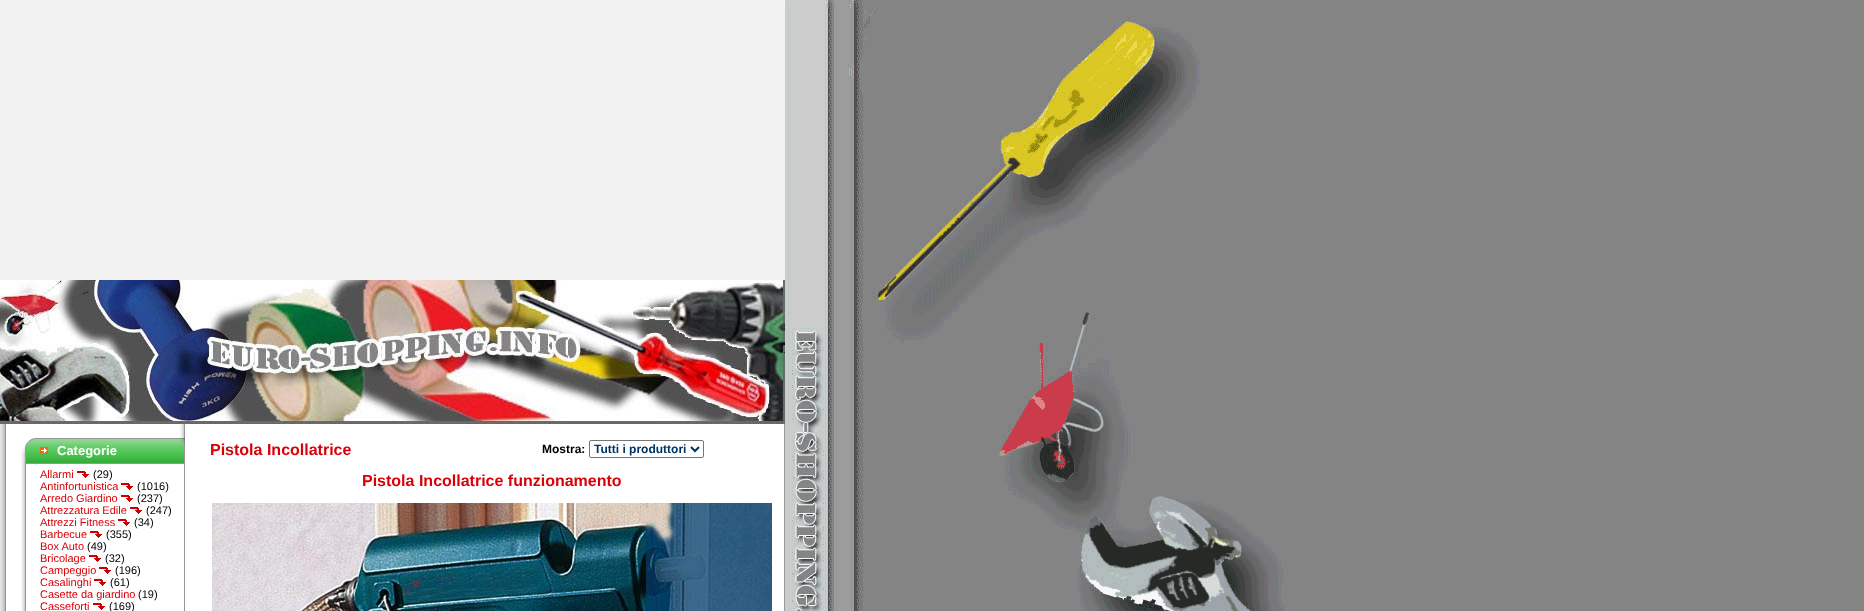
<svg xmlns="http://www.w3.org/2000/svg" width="1864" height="611">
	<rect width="100%" height="100%" fill="#FFFFFF" />
	<image x="0" y="0" width="1864" height="611" href="assets/img1.png" />
	<image x="0" y="280" width="785" height="144" href="assets/img2.png" />
	<image x="0" y="424" width="185" height="187" href="assets/img3.png" />
	<image x="21" y="464" width="164" height="147" href="assets/img4.png" />
	<image x="20" y="438" width="165" height="26" href="assets/img5.png" />
	<text x="57" y="455" font-family="Liberation Sans" font-size="13" font-weight="700" fill="#FFFFFF">Categorie</text>
	<text x="40" y="478" font-family="Liberation Sans" font-size="11" fill="#DA0008">Allarmi</text>
	<image x="77" y="471" width="12" height="7" href="assets/img6.png" />
	<text x="93" y="478" font-family="Liberation Sans" font-size="11" fill="#000000">(29)</text>
	<text x="40" y="490" font-family="Liberation Sans" font-size="11" fill="#DA0008">Antinfortunistica</text>
	<image x="121" y="483" width="12" height="7" href="assets/img6.png" />
	<text x="137" y="490" font-family="Liberation Sans" font-size="11" fill="#000000">(1016)</text>
	<text x="40" y="502" font-family="Liberation Sans" font-size="11" fill="#DA0008">Arredo Giardino</text>
	<image x="121" y="495" width="12" height="7" href="assets/img6.png" />
	<text x="137" y="502" font-family="Liberation Sans" font-size="11" fill="#000000">(237)</text>
	<text x="40" y="514" font-family="Liberation Sans" font-size="11" fill="#DA0008">Attrezzatura Edile</text>
	<image x="130" y="507" width="12" height="7" href="assets/img6.png" />
	<text x="146" y="514" font-family="Liberation Sans" font-size="11" fill="#000000">(247)</text>
	<text x="40" y="526" font-family="Liberation Sans" font-size="11" fill="#DA0008">Attrezzi Fitness</text>
	<image x="118" y="519" width="12" height="7" href="assets/img6.png" />
	<text x="134" y="526" font-family="Liberation Sans" font-size="11" fill="#000000">(34)</text>
	<text x="40" y="538" font-family="Liberation Sans" font-size="11" fill="#DA0008">Barbecue</text>
	<image x="90" y="531" width="12" height="7" href="assets/img6.png" />
	<text x="106" y="538" font-family="Liberation Sans" font-size="11" fill="#000000">(355)</text>
	<text x="40" y="550" font-family="Liberation Sans" font-size="11" fill="#DA0008">Box Auto</text>
	<text x="87" y="550" font-family="Liberation Sans" font-size="11" fill="#000000">(49)</text>
	<text x="40" y="562" font-family="Liberation Sans" font-size="11" fill="#DA0008">Bricolage</text>
	<image x="89" y="555" width="12" height="7" href="assets/img6.png" />
	<text x="105" y="562" font-family="Liberation Sans" font-size="11" fill="#000000">(32)</text>
	<text x="40" y="574" font-family="Liberation Sans" font-size="11" fill="#DA0008">Campeggio</text>
	<image x="99" y="567" width="12" height="7" href="assets/img6.png" />
	<text x="115" y="574" font-family="Liberation Sans" font-size="11" fill="#000000">(196)</text>
	<text x="40" y="586" font-family="Liberation Sans" font-size="11" fill="#DA0008">Casalinghi</text>
	<image x="94" y="579" width="12" height="7" href="assets/img6.png" />
	<text x="110" y="586" font-family="Liberation Sans" font-size="11" fill="#000000">(61)</text>
	<text x="40" y="598" font-family="Liberation Sans" font-size="11" fill="#DA0008">Casette da giardino</text>
	<text x="138" y="598" font-family="Liberation Sans" font-size="11" fill="#000000">(19)</text>
	<text x="40" y="610" font-family="Liberation Sans" font-size="11" fill="#DA0008">Casseforti</text>
	<image x="93" y="603" width="12" height="7" href="assets/img6.png" />
	<text x="109" y="610" font-family="Liberation Sans" font-size="11" fill="#000000">(169)</text>
	<rect x="185" y="424" width="599" height="187" fill="#FFFFFF" />
	<text x="210" y="455" font-family="Liberation Sans" font-size="16" font-weight="700" fill="#DA0008">Pistola Incollatrice</text>
	<text x="542" y="453" font-family="Liberation Sans" font-size="12" font-weight="700" fill="#000000">Mostra:</text>
	<rect x="589.5" y="440.5" width="114" height="17" rx="1.5" fill="none" stroke="#767676" />
	<path d="M691 447L695 451L699 447" fill="none" stroke="#003366" stroke-width="2" />
	<text x="594" y="453" font-family="Liberation Sans" font-size="12" font-weight="700" fill="#003366">Tutti i produttori</text>
	<text x="362" y="486" font-family="Liberation Sans" font-size="16" font-weight="700" fill="#DA0008">Pistola Incollatrice funzionamento</text>
	<image x="212" y="503" width="560" height="108" href="assets/img7.png" />
	<rect x="784" y="424" width="1" height="187" fill="#979797" />
</svg>
